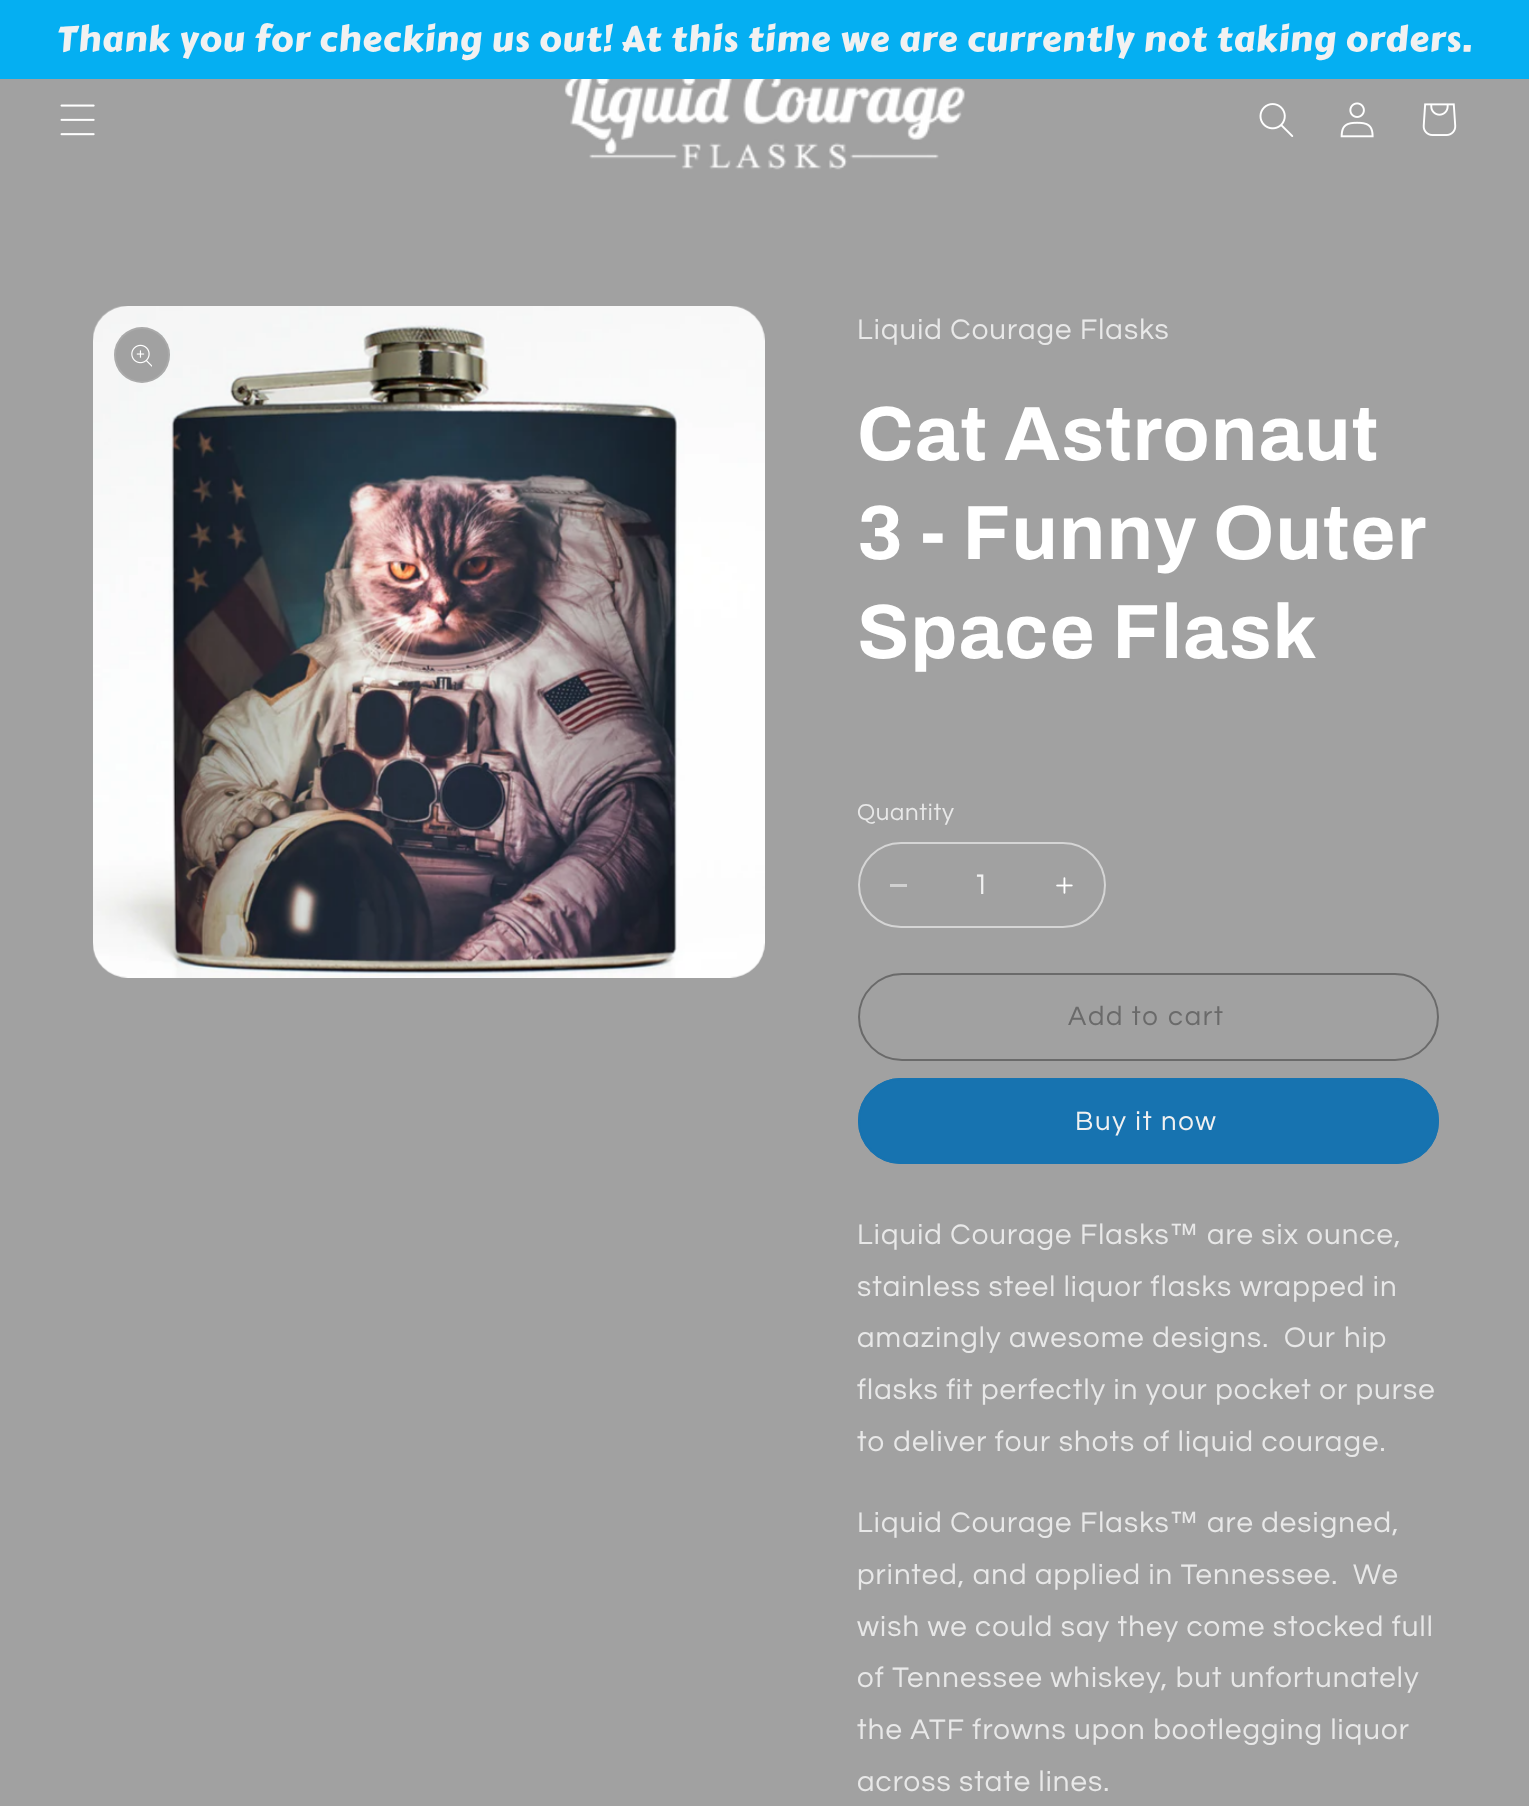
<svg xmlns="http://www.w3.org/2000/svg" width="1529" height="1806">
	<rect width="100%" height="100%" fill="#A1A1A1" />
	<rect x="0" y="0" width="1529" height="79" fill="#05AFF2" />
	<text x="57" y="51" font-family="Carter One" font-size="35" letter-spacing="1.1" fill="#F1F1F1">Thank you for checking us out! At this time we are currently not taking orders.</text>
	<image x="60" y="104" width="35" height="32" href="assets/img1.png" />
	<image x="564" y="79" width="401" height="91" href="assets/img2.png" />
	<image x="1259" y="103" width="35" height="34" href="assets/img3.png" />
	<image x="1340" y="102" width="34" height="36" href="assets/img4.png" />
	<image x="1422" y="103" width="35" height="33" href="assets/img5.png" />
	<image x="93" y="306" width="672" height="672" href="assets/img6.png" />
	<circle cx="142" cy="355" r="28" fill="#A1A1A1" />
	<circle cx="142" cy="355" r="27" fill="none" stroke="#FFFFFF" stroke-opacity="0.1" stroke-width="2" />
	<image x="131" y="344" width="21" height="23" href="assets/img7.png" />
	<text x="857" y="339" font-family="Questrial" font-size="29.4" letter-spacing="1.1" fill="#E8E8E8">Liquid Courage Flasks</text>
	<g font-family="Archivo" font-size="77" font-weight="700" letter-spacing="1.2" fill="#FFFFFF">
		<text x="857" y="460">Cat Astronaut</text>
		<text x="857" y="559" word-spacing="-0.5">3 - Funny Outer</text>
		<text x="857" y="658">Space Flask</text>
	</g>
	<text x="857" y="820" font-family="Questrial" font-size="24" letter-spacing="0.75" fill="#E8E8E8">Quantity</text>
	<rect x="890" y="884" width="17" height="3" fill="#D0D0D0" />
	<image x="1056" y="877" width="17" height="17" href="assets/img8.png" />
	<rect x="859" y="843" width="246" height="84" rx="42" fill="none" stroke="#D5D5D5" stroke-width="2" />
	<text x="973" y="894" font-family="Questrial" font-size="29.4" fill="#F1F1F1">1</text>
	<rect x="859" y="974" width="579" height="86" rx="43" fill="none" stroke="#6A6A6A" stroke-width="2" />
	<text x="1068" y="1025" font-family="Questrial" font-size="27.5" letter-spacing="1.75" fill="#6A6A6A">Add to cart</text>
	<rect x="858" y="1078" width="581" height="86" rx="43" fill="#1773B0" />
	<rect x="859" y="1079" width="579" height="84" rx="42" fill="none" stroke="#1773B0" stroke-width="2" />
	<text x="1075" y="1130" font-family="Questrial" font-size="27.5" letter-spacing="1.75" fill="#F1F1F1">Buy it now</text>
	<text x="857" y="1244" font-family="Questrial" font-size="29.4" letter-spacing="1.1" fill="#E8E8E8">Liquid Courage Flasks</text>
	<text x="1169" y="1244" font-family="Liberation Sans" font-size="29.4" letter-spacing="1.1" fill="#E8E8E8">™</text>
	<g font-family="Questrial" font-size="29.4" letter-spacing="1.1" fill="#E8E8E8">
		<text x="1207" y="1244">are six ounce,</text>
		<text x="857" y="1296">stainless steel liquor flasks wrapped in</text>
		<text x="857" y="1347" xml:space="preserve">amazingly awesome designs.  Our</text>
		<text x="1344" y="1347">hip</text>
		<text x="857" y="1399">flasks fit perfectly in your pocket or purse</text>
		<text x="857" y="1451">to deliver four shots of liquid courage.</text>
		<text x="857" y="1532">Liquid Courage Flasks</text>
	</g>
	<text x="1169" y="1532" font-family="Liberation Sans" font-size="29.4" letter-spacing="1.1" fill="#E8E8E8">™</text>
	<g font-family="Questrial" font-size="29.4" letter-spacing="1.1" fill="#E8E8E8">
		<text x="1207" y="1532">are designed,</text>
		<text x="857" y="1584" xml:space="preserve">printed, and applied in Tennessee.  We</text>
		<text x="857" y="1636">wish we could say they come stocked full</text>
		<text x="857" y="1687">of Tennessee whiskey, but unfortunately</text>
		<text x="857" y="1739">the ATF frowns upon bootlegging liquor</text>
		<text x="857" y="1791">across state lines.</text>
	</g>
</svg>
